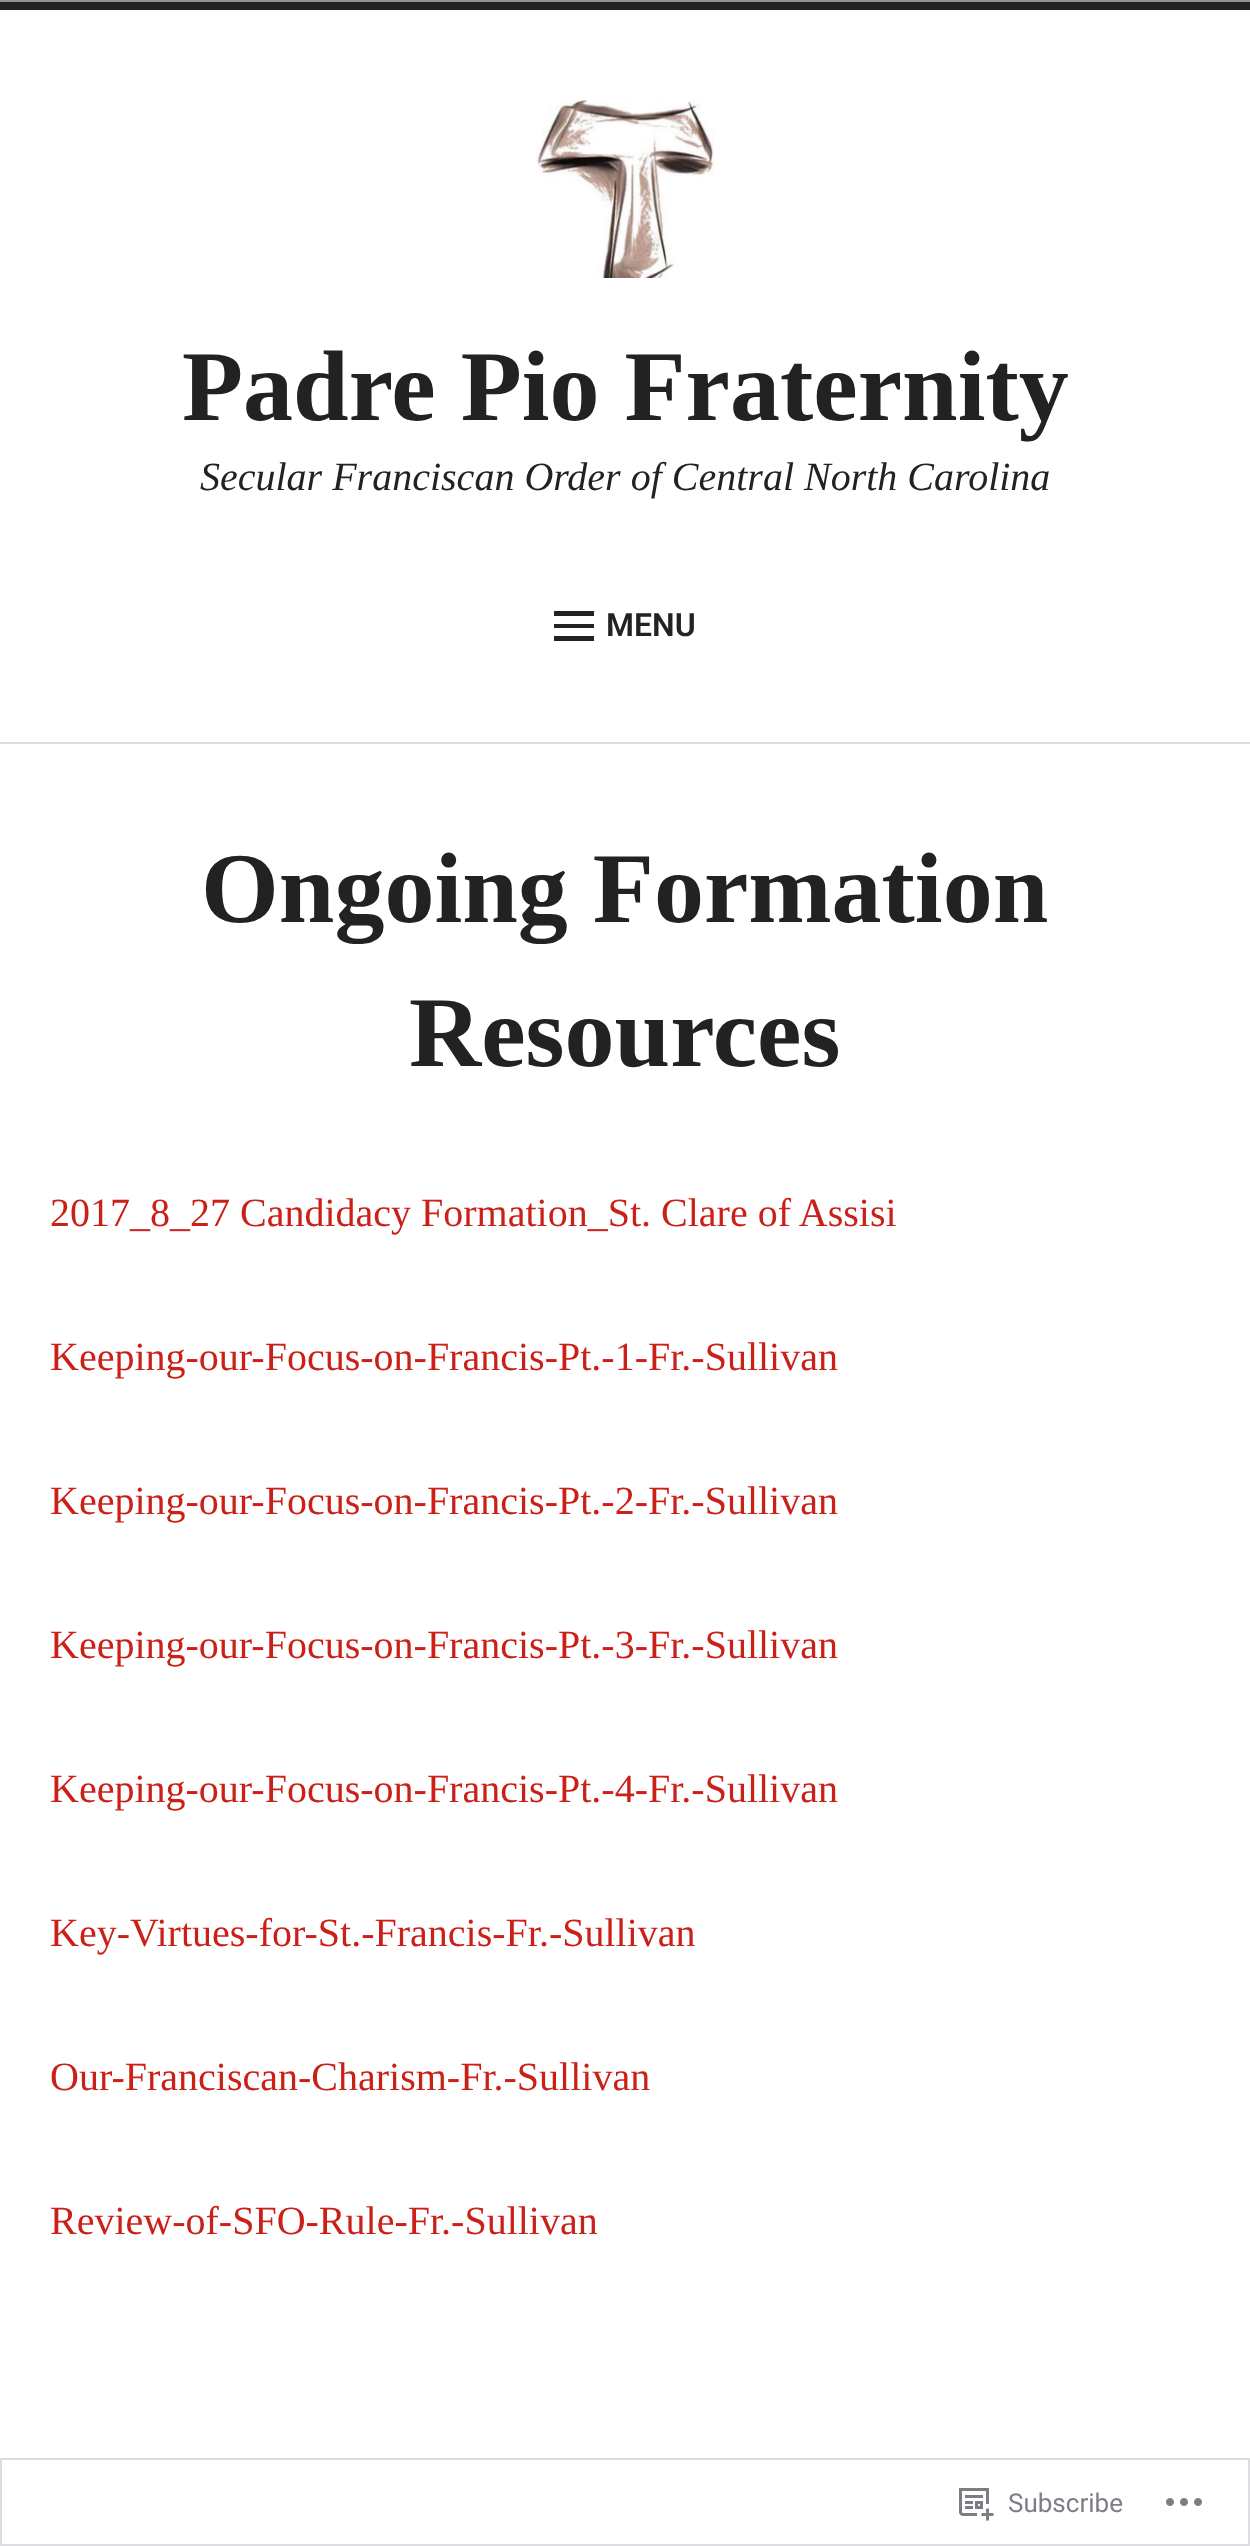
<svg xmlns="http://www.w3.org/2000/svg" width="1250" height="2546">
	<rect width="100%" height="100%" fill="#FFFFFF" />
	<rect x="0" y="2" width="1250" height="8" fill="#222222" />
	<rect x="0" y="742" width="1250" height="2" fill="#DDDDDD" />
	<rect x="0" y="0" width="1250" height="2" fill="#919191" />
	<image x="536" y="100" width="178" height="178" href="assets/img1.png" />
	<text x="182" y="420" font-family="Liberation Serif" font-size="100" font-weight="700" fill="#222222">Padre Pio Fraternity</text>
	<text x="200" y="490" font-family="Liberation Serif" font-size="40" font-style="italic" fill="#222222">Secular Franciscan Order of Central North Carolina</text>
	<path d="M554 641H594V636H554ZM554 611V616H594V611ZM554 628H594V624H554Z" fill="#222222" />
	<text x="606" y="636" font-family="Roboto" font-size="32" font-weight="600" fill="#222222">MENU</text>
	<g font-family="Liberation Serif" font-size="100" font-weight="700" fill="#222222">
		<text x="201" y="922">Ongoing Formation</text>
		<text x="409" y="1066">Resources</text>
	</g>
	<g font-family="Liberation Serif" font-size="40" fill="#CA2017">
		<text x="50" y="1226">2017_8_27 Candidacy Formation_St. Clare of Assisi</text>
		<text x="50" y="1370">Keeping-our-Focus-on-Francis-Pt.-1-Fr.-Sullivan</text>
		<text x="50" y="1514">Keeping-our-Focus-on-Francis-Pt.-2-Fr.-Sullivan</text>
		<text x="50" y="1658">Keeping-our-Focus-on-Francis-Pt.-3-Fr.-Sullivan</text>
		<text x="50" y="1802">Keeping-our-Focus-on-Francis-Pt.-4-Fr.-Sullivan</text>
		<text x="50" y="1946">Key-Virtues-for-St.-Francis-Fr.-Sullivan</text>
		<text x="50" y="2090">Our-Franciscan-Charism-Fr.-Sullivan</text>
		<text x="50" y="2234">Review-of-SFO-Rule-Fr.-Sullivan</text>
	</g>
	<rect x="1" y="2459" width="1248" height="86" fill="none" stroke="#DDDDDF" stroke-width="2" />
	<image x="959" y="2488" width="35" height="33" href="assets/img2.png" />
	<text x="1008" y="2512" font-family="Roboto" font-size="26" fill="#7B7F85">Subscribe</text>
	<image x="1166" y="2498" width="36" height="8" href="assets/img3.png" />
</svg>
